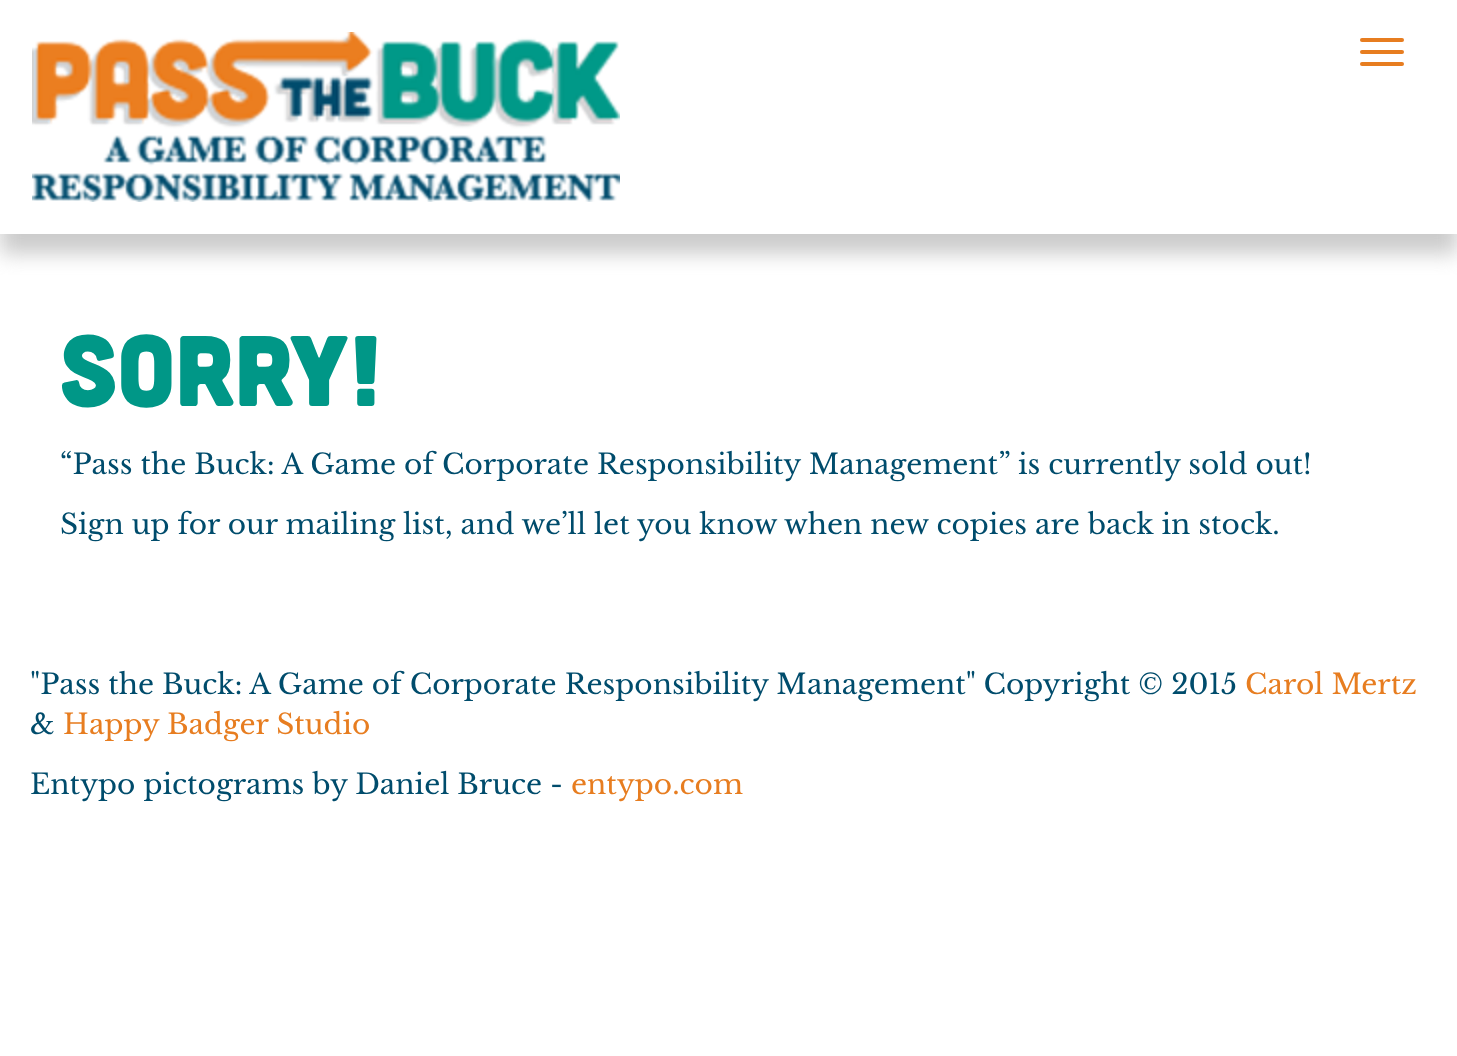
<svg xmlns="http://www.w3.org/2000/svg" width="1457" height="1056">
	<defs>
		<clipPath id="clip1"><rect x="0" y="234" width="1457" height="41" /></clipPath>
	</defs>
	<rect width="100%" height="100%" fill="#FFFFFF" />
	<g clip-path="url(#clip1)">
		<rect x="0" y="20" width="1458" height="234" fill="#CCCCCC" filter="blur(10px)" />
	</g>
	<image x="32" y="32" width="588" height="170" href="assets/img1.png" />
	<rect x="1360" y="38" width="44" height="4" rx="2" fill="#E77D20" />
	<rect x="1360" y="50" width="44" height="4" rx="2" fill="#E77D20" />
	<rect x="1360" y="62" width="44" height="4" rx="2" fill="#E77D20" />
	<text x="60" y="406" font-family="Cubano" font-size="100" fill="#009787">Sorry!</text>
	<g font-family="Libre Baskerville" font-size="28" fill="#004C6C">
		<text x="60" y="474">“Pass the Buck: A Game of Corporate Responsibility Management” is currently sold out!</text>
		<text x="60" y="534">Sign up for our mailing list, and we’ll let you know when new copies are back in stock.</text>
		<text x="30" y="694">"Pass the Buck: A Game of Corporate Responsibility Management" Copyright © 2015</text>
	</g>
	<text x="1245" y="694" font-family="Libre Baskerville" font-size="28" fill="#E77D20">Carol Mertz</text>
	<text x="30" y="734" font-family="Libre Baskerville" font-size="28" fill="#004C6C">&amp;</text>
	<text x="63" y="734" font-family="Libre Baskerville" font-size="28" fill="#E77D20">Happy Badger Studio</text>
	<text x="30" y="794" font-family="Libre Baskerville" font-size="28" fill="#004C6C">Entypo pictograms by Daniel Bruce -</text>
	<text x="571" y="794" font-family="Libre Baskerville" font-size="28" fill="#E77D20">entypo.com</text>
</svg>
